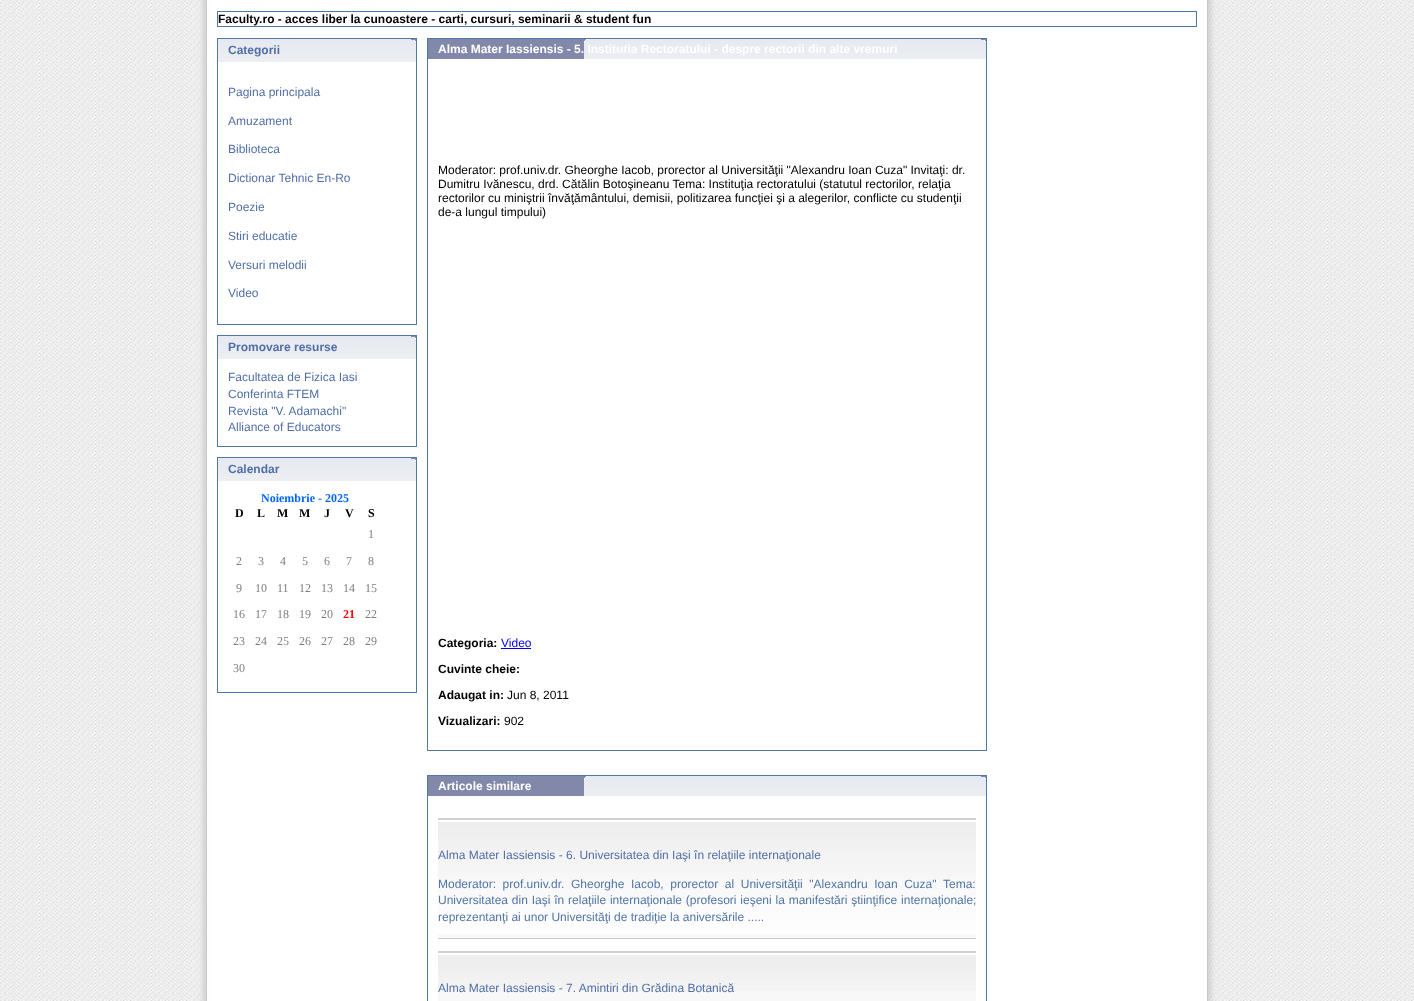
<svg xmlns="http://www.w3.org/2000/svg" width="1414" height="1001">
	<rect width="100%" height="100%" fill="#FFFFFF" />
	<image x="0" y="0" width="1414" height="1001" href="assets/img1.png" />
	<rect x="217.5" y="11.5" width="979" height="15" fill="none" stroke="#507AA5" />
	<text x="218" y="23" font-family="Liberation Sans" font-size="12" font-weight="700" fill="#000000">Faculty.ro - acces liber la cunoastere - carti, cursuri, seminarii &amp; student fun</text>
	<rect x="217.5" y="38.5" width="199" height="286" fill="none" stroke="#507AA5" />
	<rect x="411" y="39" width="5" height="3" fill="#8288AA" />
	<image x="218" y="39" width="198" height="23" href="assets/img2.png" />
	<text x="228" y="54" font-family="Liberation Sans" font-size="12" font-weight="700" fill="#516FA6">Categorii</text>
	<g font-family="Liberation Sans" font-size="12" fill="#516FA6">
		<text x="228" y="96">Pagina principala</text>
		<text x="228" y="125">Amuzament</text>
		<text x="228" y="153">Biblioteca</text>
		<text x="228" y="182">Dictionar Tehnic En-Ro</text>
		<text x="228" y="211">Poezie</text>
		<text x="228" y="240">Stiri educatie</text>
		<text x="228" y="269">Versuri melodii</text>
		<text x="228" y="297">Video</text>
	</g>
	<rect x="217.5" y="335.5" width="199" height="111" fill="none" stroke="#507AA5" />
	<rect x="411" y="336" width="5" height="3" fill="#8288AA" />
	<image x="218" y="336" width="198" height="23" href="assets/img2.png" />
	<text x="228" y="351" font-family="Liberation Sans" font-size="12" font-weight="700" fill="#516FA6">Promovare resurse</text>
	<g font-family="Liberation Sans" font-size="12" fill="#516FA6">
		<text x="228" y="381">Facultatea de Fizica Iasi</text>
		<text x="228" y="398">Conferinta FTEM</text>
		<text x="228" y="415">Revista "V. Adamachi"</text>
		<text x="228" y="431">Alliance of Educators</text>
	</g>
	<rect x="217.5" y="457.5" width="199" height="235" fill="none" stroke="#507AA5" />
	<rect x="411" y="458" width="5" height="3" fill="#8288AA" />
	<image x="218" y="458" width="198" height="23" href="assets/img2.png" />
	<text x="228" y="473" font-family="Liberation Sans" font-size="12" font-weight="700" fill="#516FA6">Calendar</text>
	<text x="261" y="502" font-family="Liberation Serif" font-size="12" font-weight="700" fill="#0066FF">Noiembrie - 2025</text>
	<g font-family="Liberation Serif" font-size="12" font-weight="700" fill="#000000">
		<text x="235" y="517">D</text>
		<text x="257" y="517">L</text>
		<text x="277" y="517">M</text>
		<text x="299" y="517">M</text>
		<text x="324" y="517">J</text>
		<text x="345" y="517">V</text>
		<text x="368" y="517">S</text>
	</g>
	<g font-family="Liberation Serif" font-size="12" fill="#808080">
		<text x="368" y="538">1</text>
		<text x="236" y="565">2</text>
		<text x="258" y="565">3</text>
		<text x="280" y="565">4</text>
		<text x="302" y="565">5</text>
		<text x="324" y="565">6</text>
		<text x="346" y="565">7</text>
		<text x="368" y="565">8</text>
		<text x="236" y="592">9</text>
		<text x="255" y="592">10</text>
		<text x="277" y="592">11</text>
		<text x="299" y="592">12</text>
		<text x="321" y="592">13</text>
		<text x="343" y="592">14</text>
		<text x="365" y="592">15</text>
		<text x="233" y="618">16</text>
		<text x="255" y="618">17</text>
		<text x="277" y="618">18</text>
		<text x="299" y="618">19</text>
		<text x="321" y="618">20</text>
	</g>
	<text x="343" y="618" font-family="Liberation Serif" font-size="12" font-weight="700" fill="#FF0000">21</text>
	<g font-family="Liberation Serif" font-size="12" fill="#808080">
		<text x="365" y="618">22</text>
		<text x="233" y="645">23</text>
		<text x="255" y="645">24</text>
		<text x="277" y="645">25</text>
		<text x="299" y="645">26</text>
		<text x="321" y="645">27</text>
		<text x="343" y="645">28</text>
		<text x="365" y="645">29</text>
		<text x="233" y="672">30</text>
	</g>
	<rect x="427.5" y="38.5" width="559" height="712" fill="none" stroke="#507AA5" />
	<rect x="428" y="39" width="558" height="20" fill="#8288AA" />
	<image x="584" y="39" width="402" height="20" href="assets/img3.png" />
	<text x="438" y="53" font-family="Liberation Sans" font-size="12" font-weight="700" fill="#FFFFFF">Alma Mater Iassiensis - 5. Institutia Rectoratului - despre rectorii din alte vremuri</text>
	<g font-family="Liberation Sans" font-size="12" fill="#000000">
		<text x="438" y="174">Moderator: prof.univ.dr. Gheorghe Iacob, prorector al Universităţii "Alexandru Ioan Cuza" Invitaţi: dr.</text>
		<text x="438" y="188">Dumitru Ivănescu, drd. Cătălin Botoşineanu Tema: Instituţia rectoratului (statutul rectorilor, relaţia</text>
		<text x="438" y="202">rectorilor cu miniştrii învăţământului, demisii, politizarea funcţiei şi a alegerilor, conflicte cu studenţii</text>
		<text x="438" y="216">de-a lungul timpului)</text>
	</g>
	<text x="438" y="647" font-family="Liberation Sans" font-size="12" font-weight="700" fill="#000000">Categoria:</text>
	<text x="501" y="647" font-family="Liberation Sans" font-size="12" fill="#0000EE">Video</text>
	<rect x="501" y="648" width="30" height="1" fill="#0000EE" />
	<g font-family="Liberation Sans" font-size="12" font-weight="700" fill="#000000">
		<text x="438" y="673">Cuvinte cheie:</text>
		<text x="438" y="699">Adaugat in:</text>
	</g>
	<text x="507" y="699" font-family="Liberation Sans" font-size="12" fill="#000000">Jun 8, 2011</text>
	<text x="438" y="725" font-family="Liberation Sans" font-size="12" font-weight="700" fill="#000000">Vizualizari:</text>
	<text x="504" y="725" font-family="Liberation Sans" font-size="12" fill="#000000">902</text>
	<rect x="427.5" y="775.5" width="559" height="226" fill="none" stroke="#507AA5" />
	<rect x="428" y="776" width="558" height="20" fill="#8288AA" />
	<image x="584" y="776" width="402" height="20" href="assets/img3.png" />
	<text x="438" y="790" font-family="Liberation Sans" font-size="12" font-weight="700" fill="#FFFFFF">Articole similare</text>
	<rect x="438" y="934" width="538" height="4" fill="#F8F8F8" />
	<image x="438" y="818" width="538" height="116" href="assets/img4.png" />
	<rect x="438" y="938" width="538" height="1" fill="#CCCCCC" />
	<text x="438" y="859" font-family="Liberation Sans" font-size="12" fill="#516FA6">Alma Mater Iassiensis - 6. Universitatea din Iaşi în relaţiile internaţionale</text>
	<g font-family="Liberation Sans" font-size="12" fill="#5175A5">
		<text x="438" y="888" word-spacing="3.25">Moderator: prof.univ.dr. Gheorghe Iacob, prorector al Universităţii "Alexandru Ioan Cuza"</text>
		<text x="943" y="888">Tema:</text>
		<text x="438" y="904" word-spacing="0.5">Universitatea din Iaşi în relaţiile internaţionale (profesori ieşeni la manifestări ştiinţifice internaţionale;</text>
		<text x="438" y="921">reprezentanţi ai unor Universităţi de tradiţie la aniversările .....</text>
	</g>
	<rect x="438" y="991" width="538" height="10" fill="#F8F8F8" />
	<image x="438" y="951" width="538" height="40" href="assets/img5.png" />
	<text x="438" y="992" font-family="Liberation Sans" font-size="12" fill="#516FA6">Alma Mater Iassiensis - 7. Amintiri din Grădina Botanică</text>
</svg>
